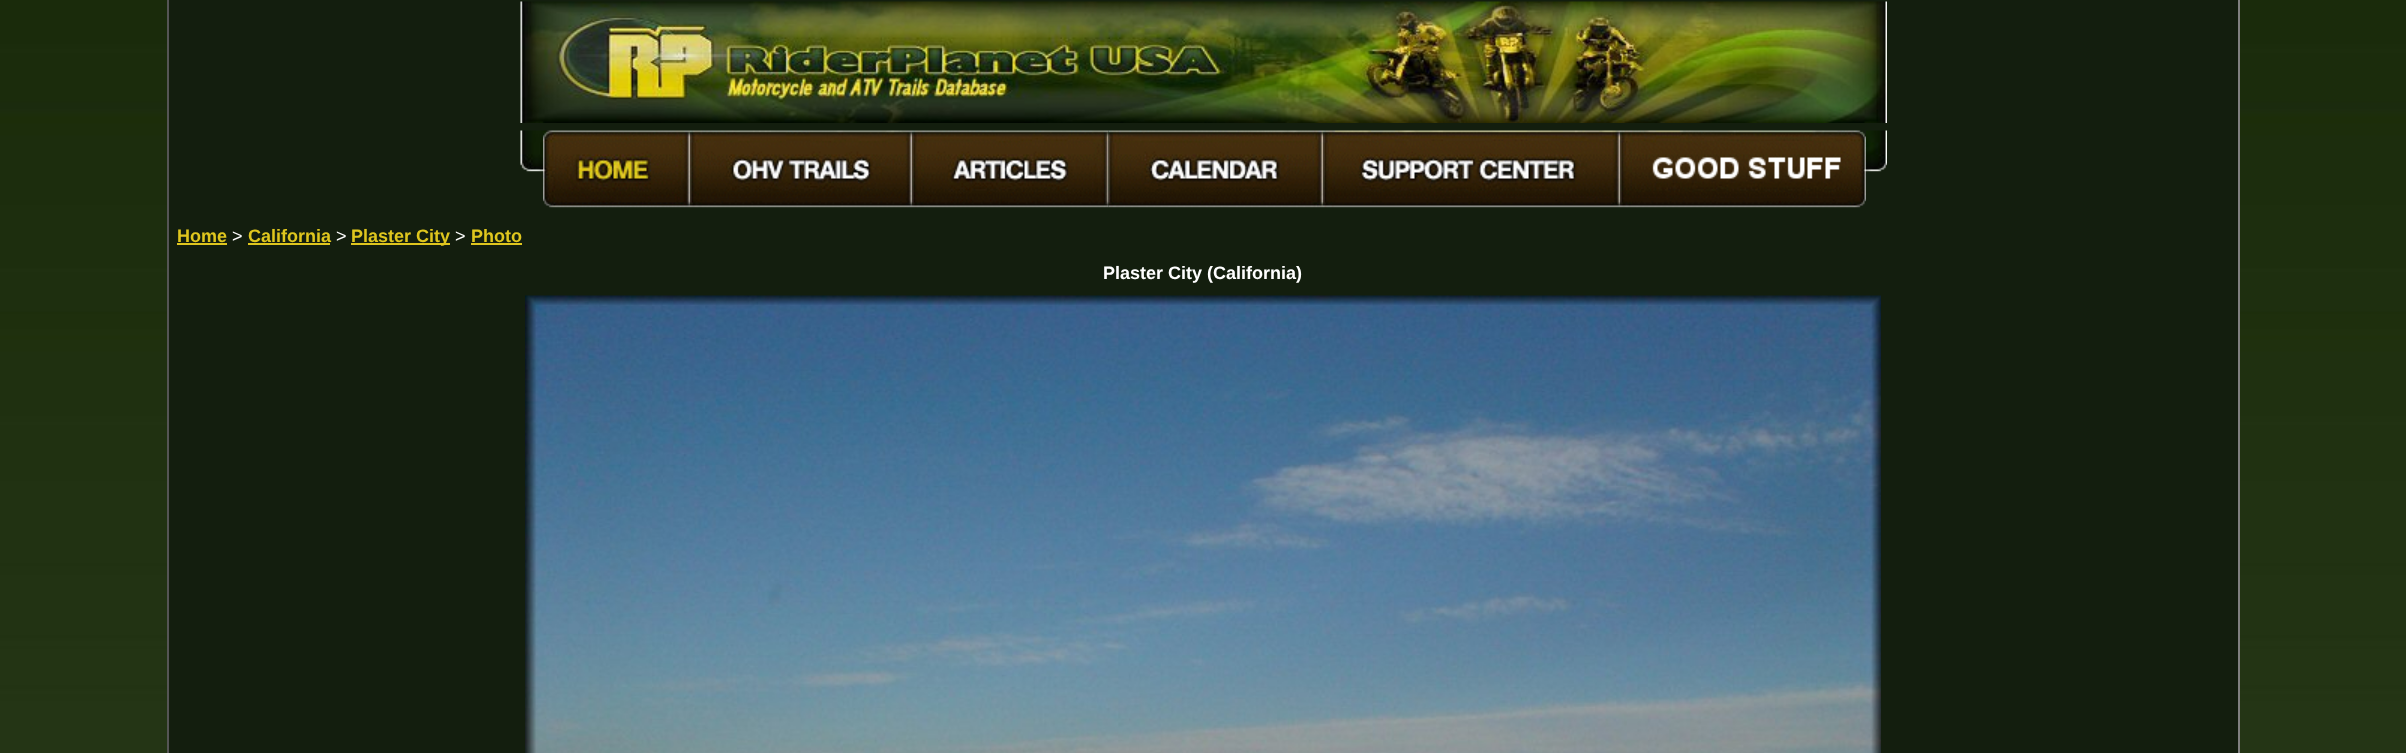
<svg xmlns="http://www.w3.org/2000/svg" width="2406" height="753">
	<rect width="100%" height="100%" fill="#FFFFFF" />
	<image x="0" y="0" width="2406" height="753" href="assets/img1.png" />
	<rect x="169" y="0" width="2069" height="753" fill="#131E0E" />
	<rect x="2238" y="0" width="2" height="753" fill="#808080" />
	<rect x="167" y="0" width="2" height="753" fill="#555555" />
	<image x="520" y="1" width="1367" height="122" href="assets/img2.png" />
	<image x="520" y="130" width="23" height="42" href="assets/img3.png" />
	<image x="543" y="130" width="147" height="78" href="assets/img4.png" />
	<image x="690" y="130" width="222" height="78" href="assets/img5.png" />
	<image x="912" y="130" width="197" height="78" href="assets/img6.png" />
	<image x="1108" y="130" width="215" height="78" href="assets/img7.png" />
	<image x="1323" y="130" width="297" height="78" href="assets/img8.png" />
	<image x="1620" y="130" width="246" height="78" href="assets/img9.png" />
	<image x="1866" y="130" width="21" height="42" href="assets/img10.png" />
	<text x="177" y="242" font-family="Liberation Sans" font-size="18" font-weight="700" fill="#DFC61E">Home</text>
	<rect x="177" y="243" width="50" height="2" fill="#DFC61E" />
	<text x="232" y="242" font-family="Liberation Sans" font-size="18" fill="#FFFFFF">&gt;</text>
	<text x="248" y="242" font-family="Liberation Sans" font-size="18" font-weight="700" fill="#DFC61E">California</text>
	<rect x="248" y="243" width="82" height="2" fill="#DFC61E" />
	<text x="336" y="242" font-family="Liberation Sans" font-size="18" fill="#FFFFFF">&gt;</text>
	<rect x="351" y="243" width="99" height="2" fill="#DFC61E" />
	<text x="351" y="242" font-family="Liberation Sans" font-size="18" font-weight="700" fill="#DFC61E">Plaster City</text>
	<text x="455" y="242" font-family="Liberation Sans" font-size="18" fill="#FFFFFF">&gt;</text>
	<text x="471" y="242" font-family="Liberation Sans" font-size="18" font-weight="700" fill="#DFC61E">Photo</text>
	<rect x="471" y="243" width="51" height="2" fill="#DFC61E" />
	<text x="1103" y="279" font-family="Liberation Sans" font-size="18" font-weight="700" fill="#FFFFFF">Plaster City (California)</text>
	<image x="525" y="295" width="1356" height="458" href="assets/img11.png" />
</svg>
